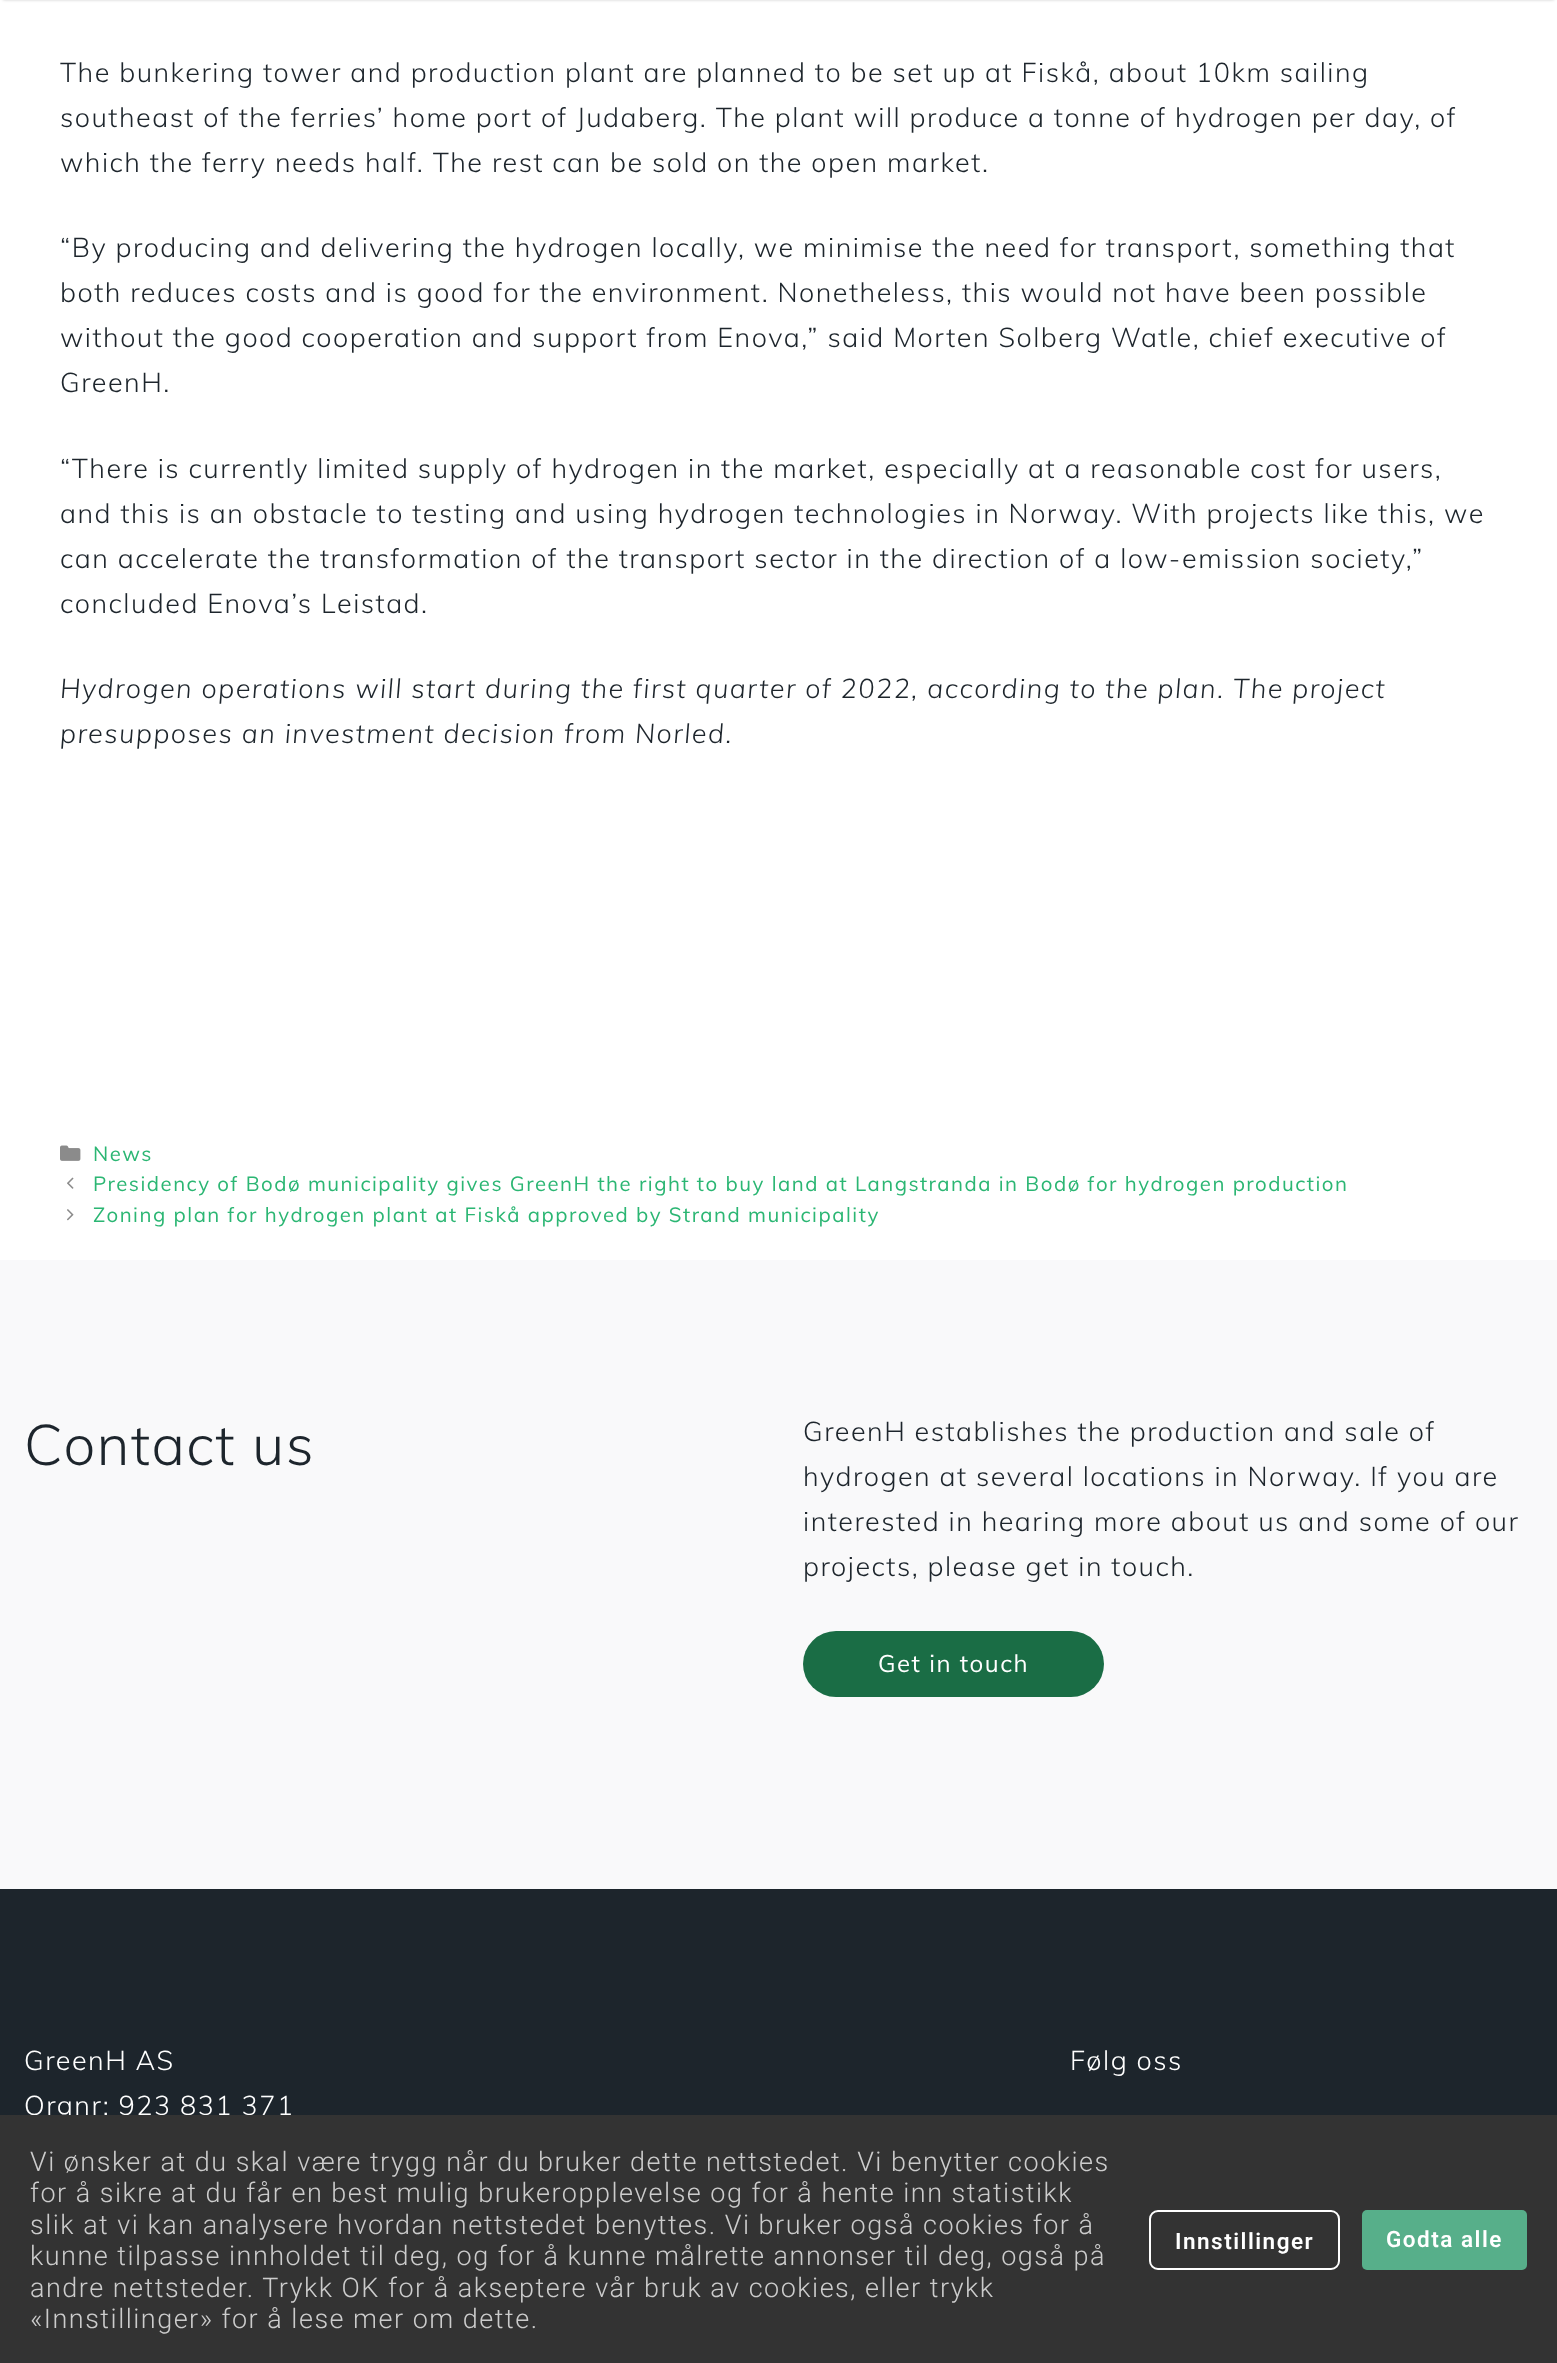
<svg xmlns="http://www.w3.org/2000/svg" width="1557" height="2363">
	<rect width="100%" height="100%" fill="#FFFFFF" />
	<rect x="3" y="-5" width="1551" height="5" fill="#000000" fill-opacity="0.2" filter="blur(1.5px)" />
	<g font-family="Muli" font-size="27" font-weight="300" letter-spacing="1.5" fill="#1D252C">
		<text x="60" y="82">The bunkering tower and production plant are planned to be set up at Fiskå, about 10km sailing</text>
		<text x="60" y="127">southeast of the ferries’ home port of Judaberg. The plant will produce a tonne of hydrogen per day, of</text>
		<text x="60" y="172">which the ferry needs half. The rest can be sold on the open market.</text>
		<text x="60" y="257">“By producing and delivering the hydrogen locally, we minimise the need for transport, something that</text>
		<text x="60" y="302">both reduces costs and is good for the environment. Nonetheless, this would not have been possible</text>
		<text x="60" y="347">without the good cooperation and support from Enova,” said Morten Solberg Watle, chief executive of</text>
		<text x="60" y="392">GreenH.</text>
		<text x="60" y="478">“There is currently limited supply of hydrogen in the market, especially at a reasonable cost for users,</text>
		<text x="60" y="523">and this is an obstacle to testing and using hydrogen technologies in Norway. With projects like this, we</text>
		<text x="60" y="568">can accelerate the transformation of the transport sector in the direction of a low-emission society,”</text>
		<text x="60" y="613">concluded Enova’s Leistad.</text>
	</g>
	<g font-family="Muli" font-size="27" font-weight="300" font-style="italic" letter-spacing="1.5" fill="#1D252C">
		<text x="60" y="698">Hydrogen operations will start during the first quarter of 2022, according to the plan. The project</text>
		<text x="60" y="743">presupposes an investment decision from Norled.</text>
	</g>
	<image x="60" y="1145" width="21" height="16" href="assets/img1.png" />
	<text x="93" y="1161" font-family="Muli" font-size="20.4" letter-spacing="1.5" fill="#2BB673">News</text>
	<image x="67" y="1177" width="7" height="12" href="assets/img2.png" />
	<text x="93" y="1191" font-family="Muli" font-size="20.4" letter-spacing="1.5" fill="#2BB673">Presidency of Bodø municipality gives GreenH the right to buy land at Langstranda in Bodø for hydrogen production</text>
	<image x="67" y="1209" width="7" height="12" href="assets/img3.png" />
	<text x="93" y="1222" font-family="Muli" font-size="20.4" letter-spacing="1.5" fill="#2BB673">Zoning plan for hydrogen plant at Fiskå approved by Strand municipality</text>
	<rect x="0" y="1260" width="1557" height="629" fill="#F9F9FA" />
	<text x="24" y="1465" font-family="Muli" font-size="56.5" font-weight="300" letter-spacing="1.5" fill="#1D252C">Contact us</text>
	<g font-family="Muli" font-size="27" font-weight="300" letter-spacing="1.5" fill="#1D252C">
		<text x="803" y="1441">GreenH establishes the production and sale of</text>
		<text x="803" y="1486">hydrogen at several locations in Norway. If you are</text>
		<text x="803" y="1531">interested in hearing more about us and some of our</text>
		<text x="803" y="1576">projects, please get in touch.</text>
	</g>
	<rect x="803" y="1631" width="301" height="66" rx="33" fill="#1A6D45" />
	<text x="878" y="1672" font-family="Muli" font-size="24" letter-spacing="1.5" fill="#FFFFFF">Get in touch</text>
	<rect x="0" y="1889" width="1557" height="226" fill="#1D252C" />
	<g font-family="Muli" font-size="27" font-weight="300" letter-spacing="1.5" fill="#FFFFFF">
		<text x="24" y="2070">GreenH AS</text>
		<text x="24" y="2115">Orgnr: 923 831 371</text>
		<text x="1070" y="2070">Følg oss</text>
	</g>
	<rect x="0" y="2115" width="1557" height="248" fill="#333333" />
	<g font-family="Roboto" font-size="27" font-weight="300" letter-spacing="1.5" fill="#CCCCCC">
		<text x="30" y="2171">Vi ønsker at du skal være trygg når du bruker dette nettstedet. Vi benytter cookies</text>
		<text x="30" y="2202">for å sikre at du får en best mulig brukeropplevelse og for å hente inn statistikk</text>
		<text x="30" y="2234">slik at vi kan analysere hvordan nettstedet benyttes. Vi bruker også cookies for å</text>
		<text x="30" y="2265">kunne tilpasse innholdet til deg, og for å kunne målrette annonser til deg, også på</text>
		<text x="30" y="2297">andre nettsteder. Trykk OK for å akseptere vår bruk av cookies, eller trykk</text>
		<text x="30" y="2328">«Innstillinger» for å lese mer om dette.</text>
	</g>
	<rect x="1150" y="2211" width="189" height="58" rx="8" fill="none" stroke="#FFFFFF" stroke-width="2" />
	<text x="1175" y="2249" font-family="Roboto" font-size="22.5" font-weight="600" letter-spacing="1.5" fill="#FFFFFF">Innstillinger</text>
	<rect x="1362" y="2210" width="165" height="60" rx="5" fill="#57AF8A" />
	<text x="1386" y="2247" font-family="Roboto" font-size="22.5" font-weight="600" letter-spacing="1.5" fill="#FFFFFF">Godta alle</text>
</svg>
